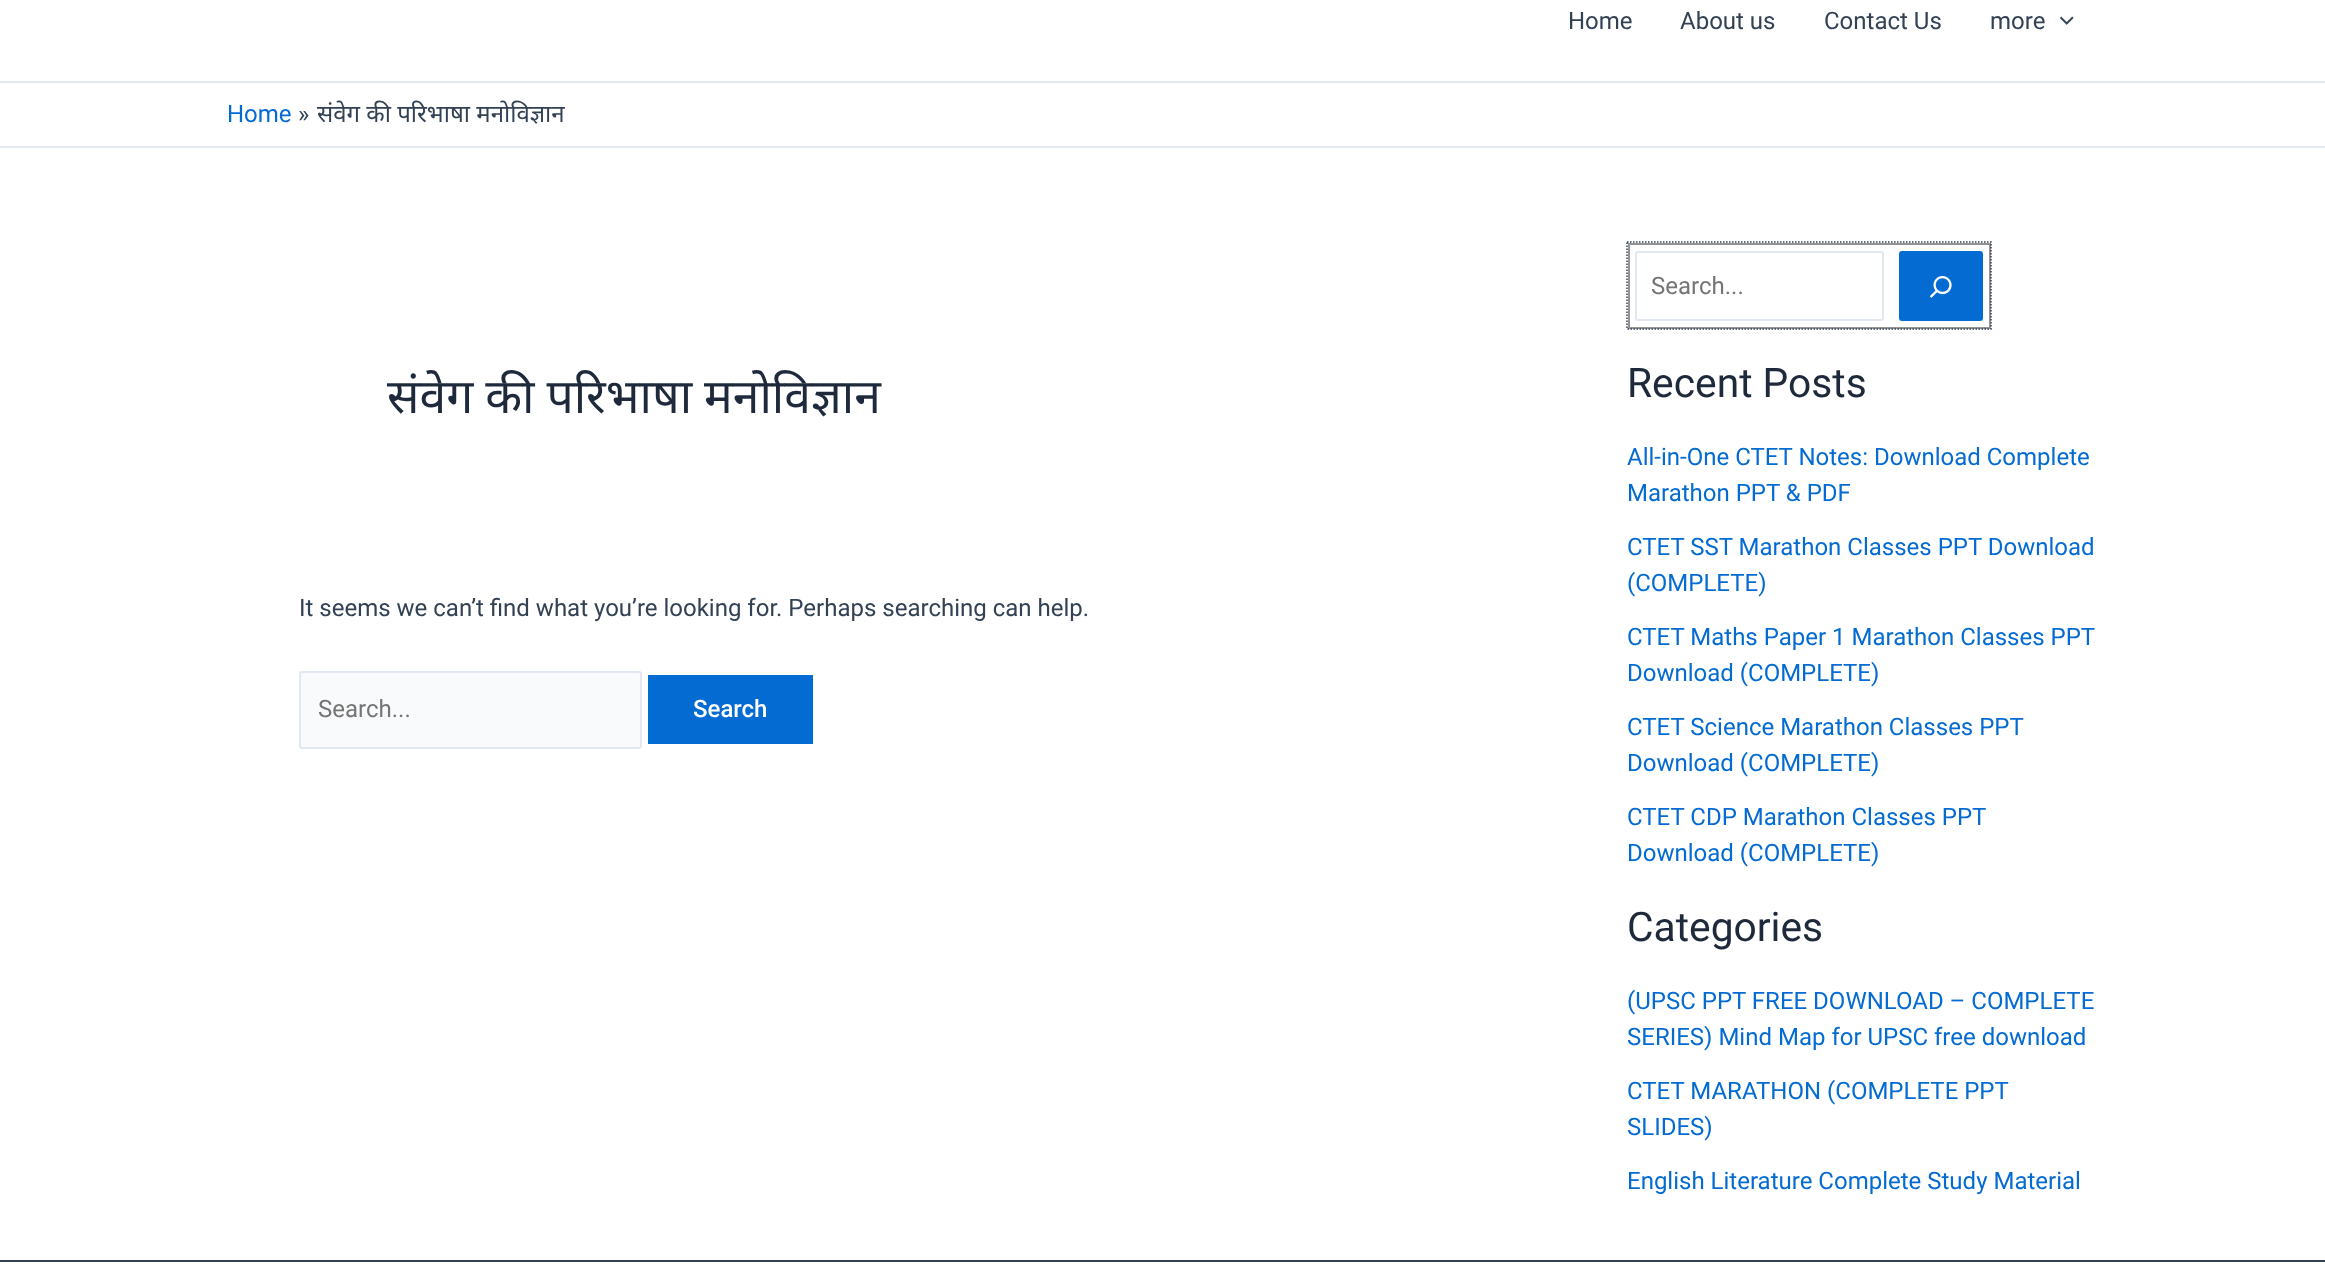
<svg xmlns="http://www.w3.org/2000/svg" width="2325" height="1281">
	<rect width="100%" height="100%" fill="#FFFFFF" />
	<rect x="0" y="81" width="2325" height="2" fill="#E2E8F0" />
	<g font-family="Roboto" font-size="24" fill="#334155">
		<text x="1568" y="29">Home</text>
		<text x="1680" y="29">About us</text>
		<text x="1824" y="29">Contact Us</text>
		<text x="1990" y="29">more</text>
	</g>
	<image x="2060" y="16" width="14" height="9" href="assets/img1.png" />
	<rect x="0" y="146" width="2325" height="2" fill="#E2E8F0" />
	<text x="227" y="122" font-family="Roboto" font-size="24" fill="#046BD2">Home</text>
	<text x="298" y="122" font-family="Roboto" font-size="24" fill="#334155">»</text>
	<text x="317" y="122" font-family="Noto Sans" font-size="24" fill="#334155">संवेग की परिभाषा मनोविज्ञान</text>
	<text x="387" y="413" word-spacing="-0.5" font-family="Noto Sans" font-size="48" fill="#1E293B">संवेग की परिभाषा मनोविज्ञान</text>
	<text x="299" y="616" font-family="Roboto" font-size="24" fill="#334155">It seems we can’t find what you’re looking for. Perhaps searching can help.</text>
	<rect x="300" y="672" width="341" height="76" rx="2" fill="#F9FAFB" stroke="#E2E8F0" stroke-width="2" />
	<text x="318" y="717" font-family="Roboto" font-size="24" fill="#757575">Search...</text>
	<rect x="648" y="675" width="165" height="69" fill="#046BD2" />
	<text x="693" y="717" font-family="Roboto" font-size="24" font-weight="500" fill="#FFFFFF">Search</text>
	<rect x="1629" y="244" width="361" height="84" fill="none" stroke="#949494" stroke-width="2" />
	<rect x="1636" y="252" width="247" height="68" rx="2" fill="none" stroke="#E2E8F0" stroke-width="2" />
	<text x="1651" y="294" font-family="Roboto" font-size="24" fill="#757575">Search...</text>
	<rect x="1899" y="251" width="84" height="70" rx="3" fill="#046BD2" />
	<path d="M1627 242H1991V329H1627Z" fill="none" stroke="#334155" stroke-width="1.5" stroke-dasharray="1.5 1.5" />
	<image x="1929" y="276" width="23" height="22" href="assets/img2.png" />
	<text x="1627" y="397" font-family="Roboto" font-size="40.75" fill="#1E293B">Recent Posts</text>
	<g font-family="Roboto" font-size="24" fill="#046BD2">
		<text x="1627" y="465">All-in-One CTET Notes: Download Complete</text>
		<text x="1627" y="501">Marathon PPT &amp; PDF</text>
		<text x="1627" y="555">CTET SST Marathon Classes PPT Download</text>
		<text x="1627" y="591">(COMPLETE)</text>
		<text x="1627" y="645">CTET Maths Paper 1 Marathon Classes PPT</text>
		<text x="1627" y="681">Download (COMPLETE)</text>
		<text x="1627" y="735">CTET Science Marathon Classes PPT</text>
		<text x="1627" y="771">Download (COMPLETE)</text>
		<text x="1627" y="825">CTET CDP Marathon Classes PPT</text>
		<text x="1627" y="861">Download (COMPLETE)</text>
	</g>
	<text x="1627" y="941" font-family="Roboto" font-size="40.75" fill="#1E293B">Categories</text>
	<g font-family="Roboto" font-size="24" fill="#046BD2">
		<text x="1627" y="1009">(UPSC PPT FREE DOWNLOAD – COMPLETE</text>
		<text x="1627" y="1045">SERIES) Mind Map for UPSC free download</text>
		<text x="1627" y="1099">CTET MARATHON (COMPLETE PPT</text>
		<text x="1627" y="1135">SLIDES)</text>
		<text x="1627" y="1189">English Literature Complete Study Material</text>
	</g>
	<rect x="0" y="1260" width="2325" height="2" fill="#334155" />
</svg>
